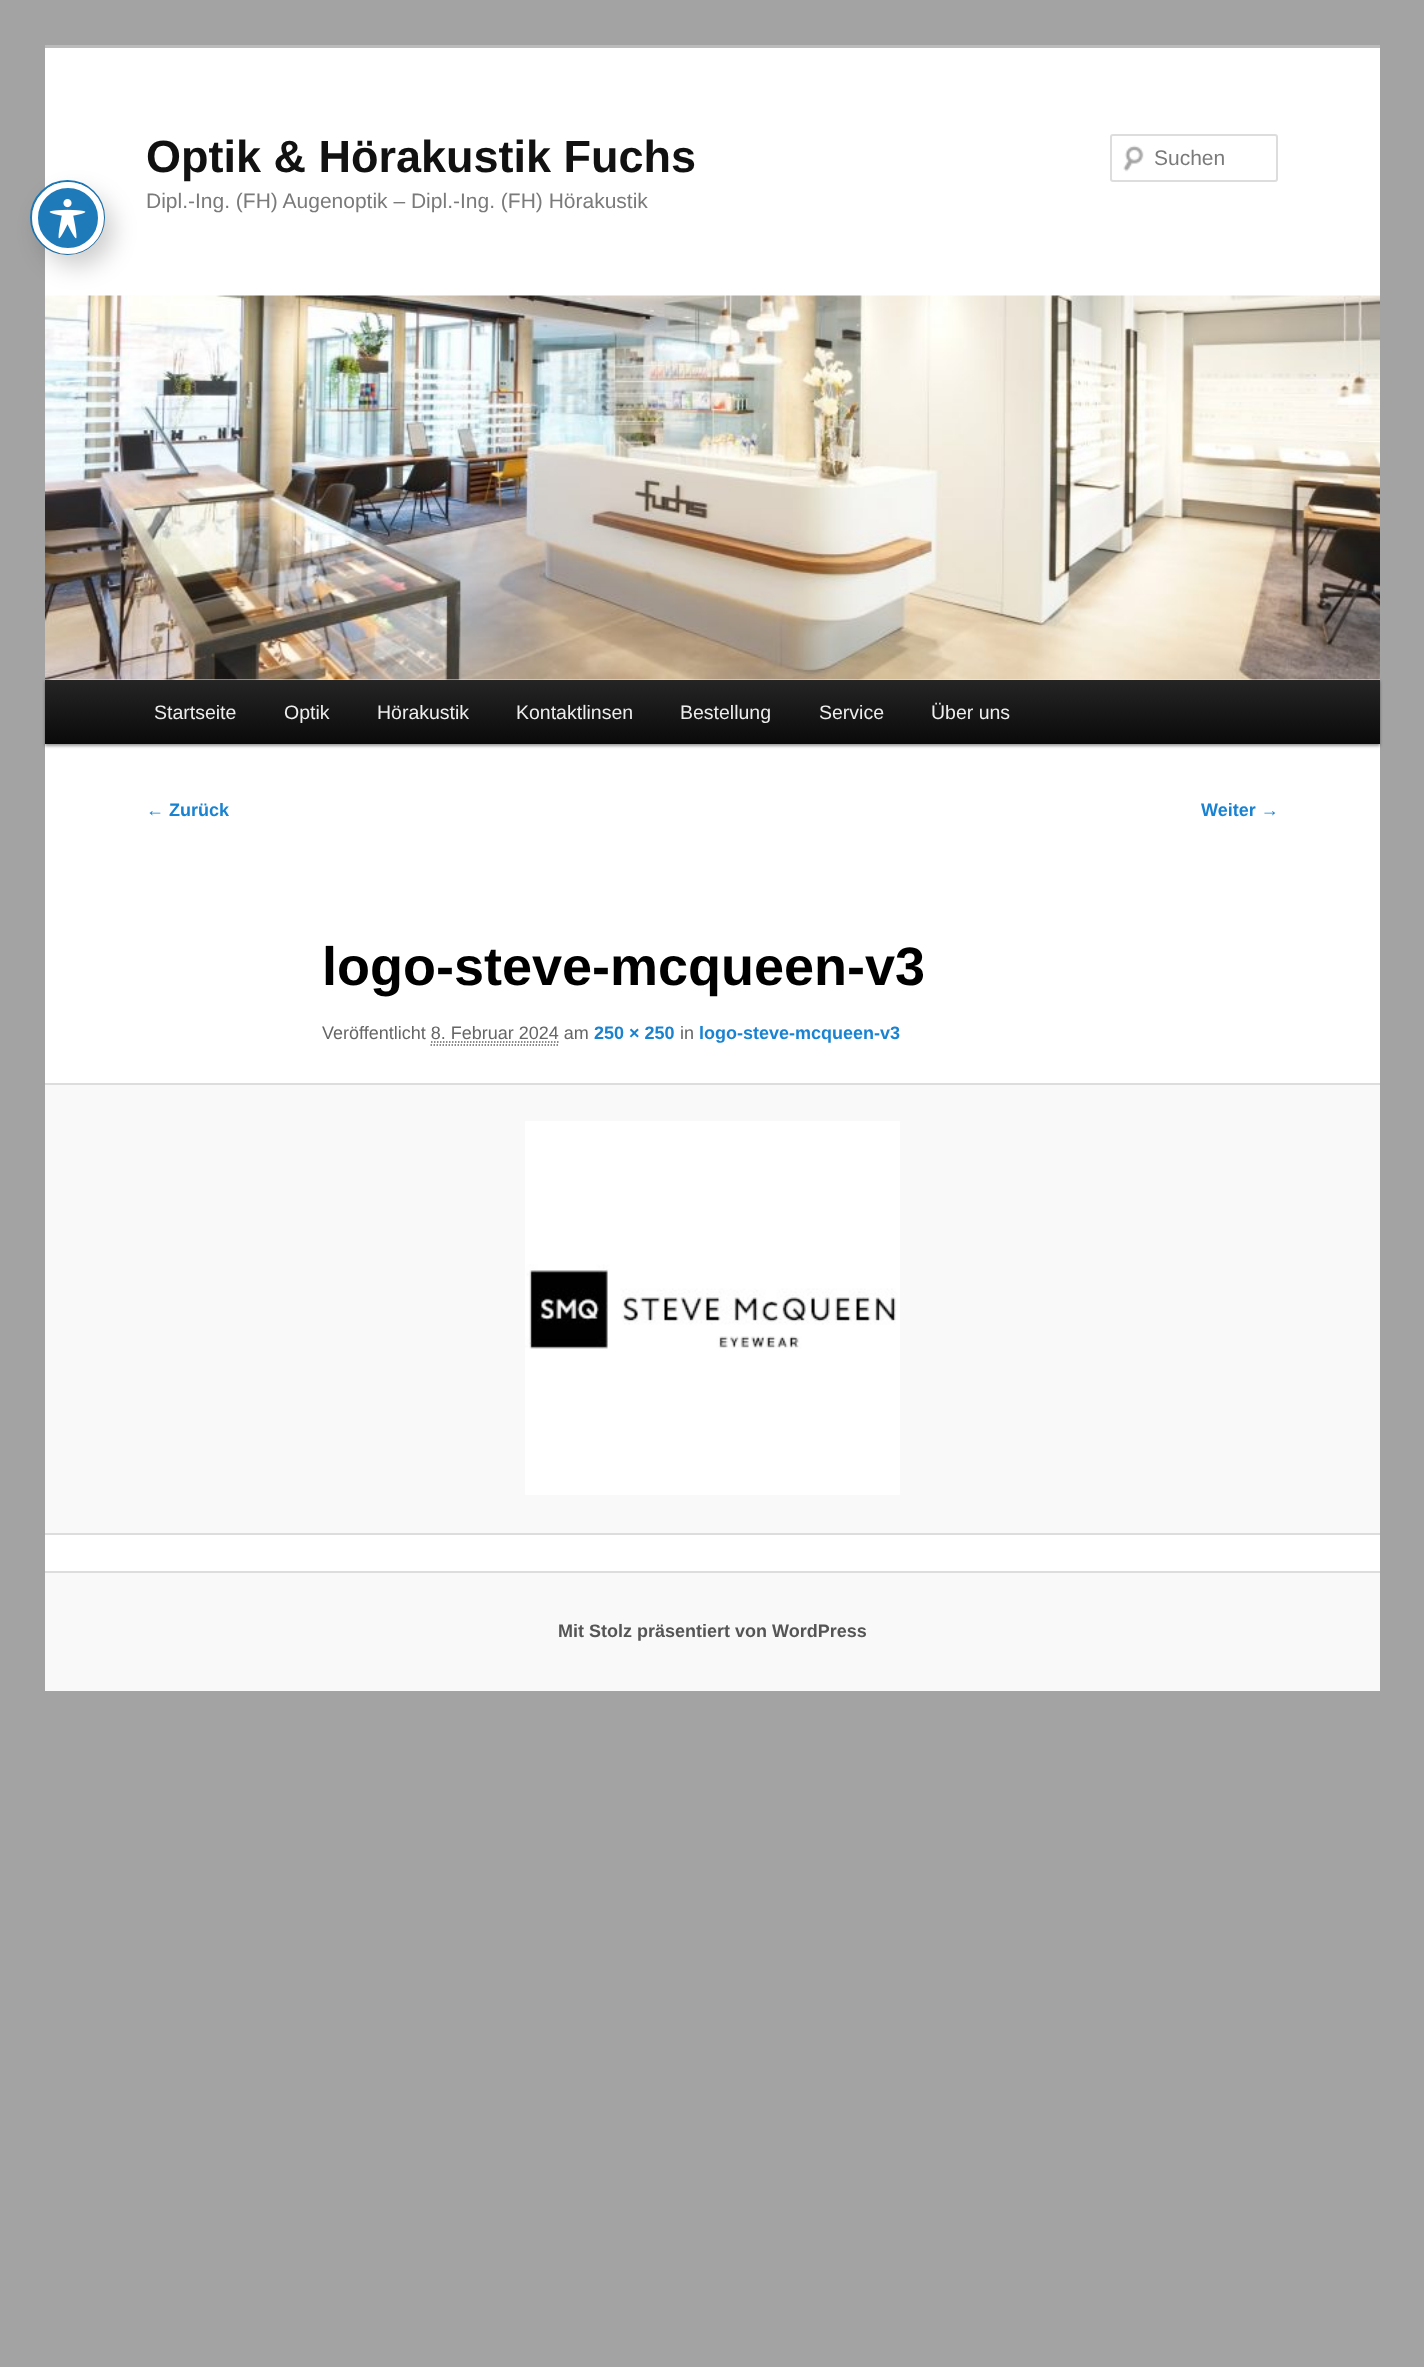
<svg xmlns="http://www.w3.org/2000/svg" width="1424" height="2367">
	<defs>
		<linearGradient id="g1" gradientUnits="userSpaceOnUse" x1="713" y1="679" x2="713" y2="744"><stop offset="0" stop-color="#252525" /><stop offset="1" stop-color="#0A0A0A" /></linearGradient>
	</defs>
	<rect width="100%" height="100%" fill="#A3A3A3" />
	<rect x="45" y="48" width="1335" height="1523" fill="#FFFFFF" />
	<circle cx="67.5" cy="217.5" r="36.5" fill="none" stroke="#1E7AB9" stroke-width="2" />
	<rect x="41" y="194" width="72" height="72" rx="36" fill="#000000" fill-opacity="0.2" filter="blur(12px)" />
	<circle cx="68" cy="218" r="33" fill="#1E7AB9" stroke="#FFFFFF" stroke-width="6" />
	<image x="49" y="199" width="37" height="40" href="assets/img1.png" />
	<rect x="45" y="45" width="1335" height="3" fill="#BBBBBB" />
	<text x="146" y="172" font-family="Liberation Sans" font-size="45" font-weight="700" fill="#111111">Optik &amp; Hörakustik Fuchs</text>
	<text x="146" y="208" font-family="Liberation Sans" font-size="21" fill="#7A7A7A">Dipl.-Ing. (FH) Augenoptik – Dipl.-Ing. (FH) Hörakustik</text>
	<image x="1123" y="145" width="21" height="27" href="assets/img2.png" />
	<rect x="1111" y="135" width="166" height="46" rx="2" fill="none" stroke="#DDDDDD" stroke-width="2" />
	<text x="1154" y="165" font-family="Liberation Sans" font-size="21" fill="#7A7A7A">Suchen</text>
	<rect x="45" y="681" width="1335" height="65" fill="#000000" fill-opacity="0.4" filter="blur(1.5px)" />
	<image x="45" y="295" width="1335" height="385" href="assets/img3.png" />
	<rect x="45" y="680" width="1335" height="64" fill="url(#g1)" />
	<g font-family="Liberation Sans" font-size="19.5" fill="#EEEEEE">
		<text x="154" y="719">Startseite</text>
		<text x="284" y="719">Optik</text>
		<text x="377" y="719">Hörakustik</text>
		<text x="516" y="719">Kontaktlinsen</text>
		<text x="680" y="719">Bestellung</text>
		<text x="819" y="719">Service</text>
		<text x="931" y="719">Über uns</text>
	</g>
	<g font-family="Liberation Sans" font-size="18" font-weight="700" fill="#1982D1">
		<text x="146" y="816">← Zurück</text>
		<text x="1201" y="816">Weiter →</text>
	</g>
	<text x="322" y="985" font-family="Liberation Sans" font-size="54" font-weight="700" fill="#000000">logo-steve-mcqueen-v3</text>
	<text x="322" y="1039" font-family="Liberation Sans" font-size="18" fill="#666666">Veröffentlicht 8. Februar 2024 am</text>
	<text x="594" y="1039" font-family="Liberation Sans" font-size="18" font-weight="700" fill="#1982D1">250 × 250</text>
	<text x="680" y="1039" font-family="Liberation Sans" font-size="18" fill="#666666">in</text>
	<text x="699" y="1039" font-family="Liberation Sans" font-size="18" font-weight="700" fill="#1982D1">logo-steve-mcqueen-v3</text>
	<path d="M431 1042H559.5" fill="none" stroke="#666666" stroke-width="1.5" stroke-dasharray="1.5 1.5" />
	<path d="M430.5 1045H559.5" fill="none" stroke="#666666" stroke-width="1.5" stroke-dasharray="1.5 1.5" />
	<rect x="45" y="1085" width="1335" height="448" fill="#F9F9F9" />
	<rect x="45" y="1083" width="1335" height="2" fill="#DDDDDD" />
	<rect x="45" y="1533" width="1335" height="2" fill="#DDDDDD" />
	<image x="525" y="1121" width="375" height="374" href="assets/img4.png" />
	<rect x="45" y="1573" width="1335" height="118" fill="#F9F9F9" />
	<rect x="45" y="1571" width="1335" height="2" fill="#DDDDDD" />
	<text x="558" y="1637" font-family="Liberation Sans" font-size="18" font-weight="700" fill="#555555">Mit Stolz präsentiert von WordPress</text>
</svg>
